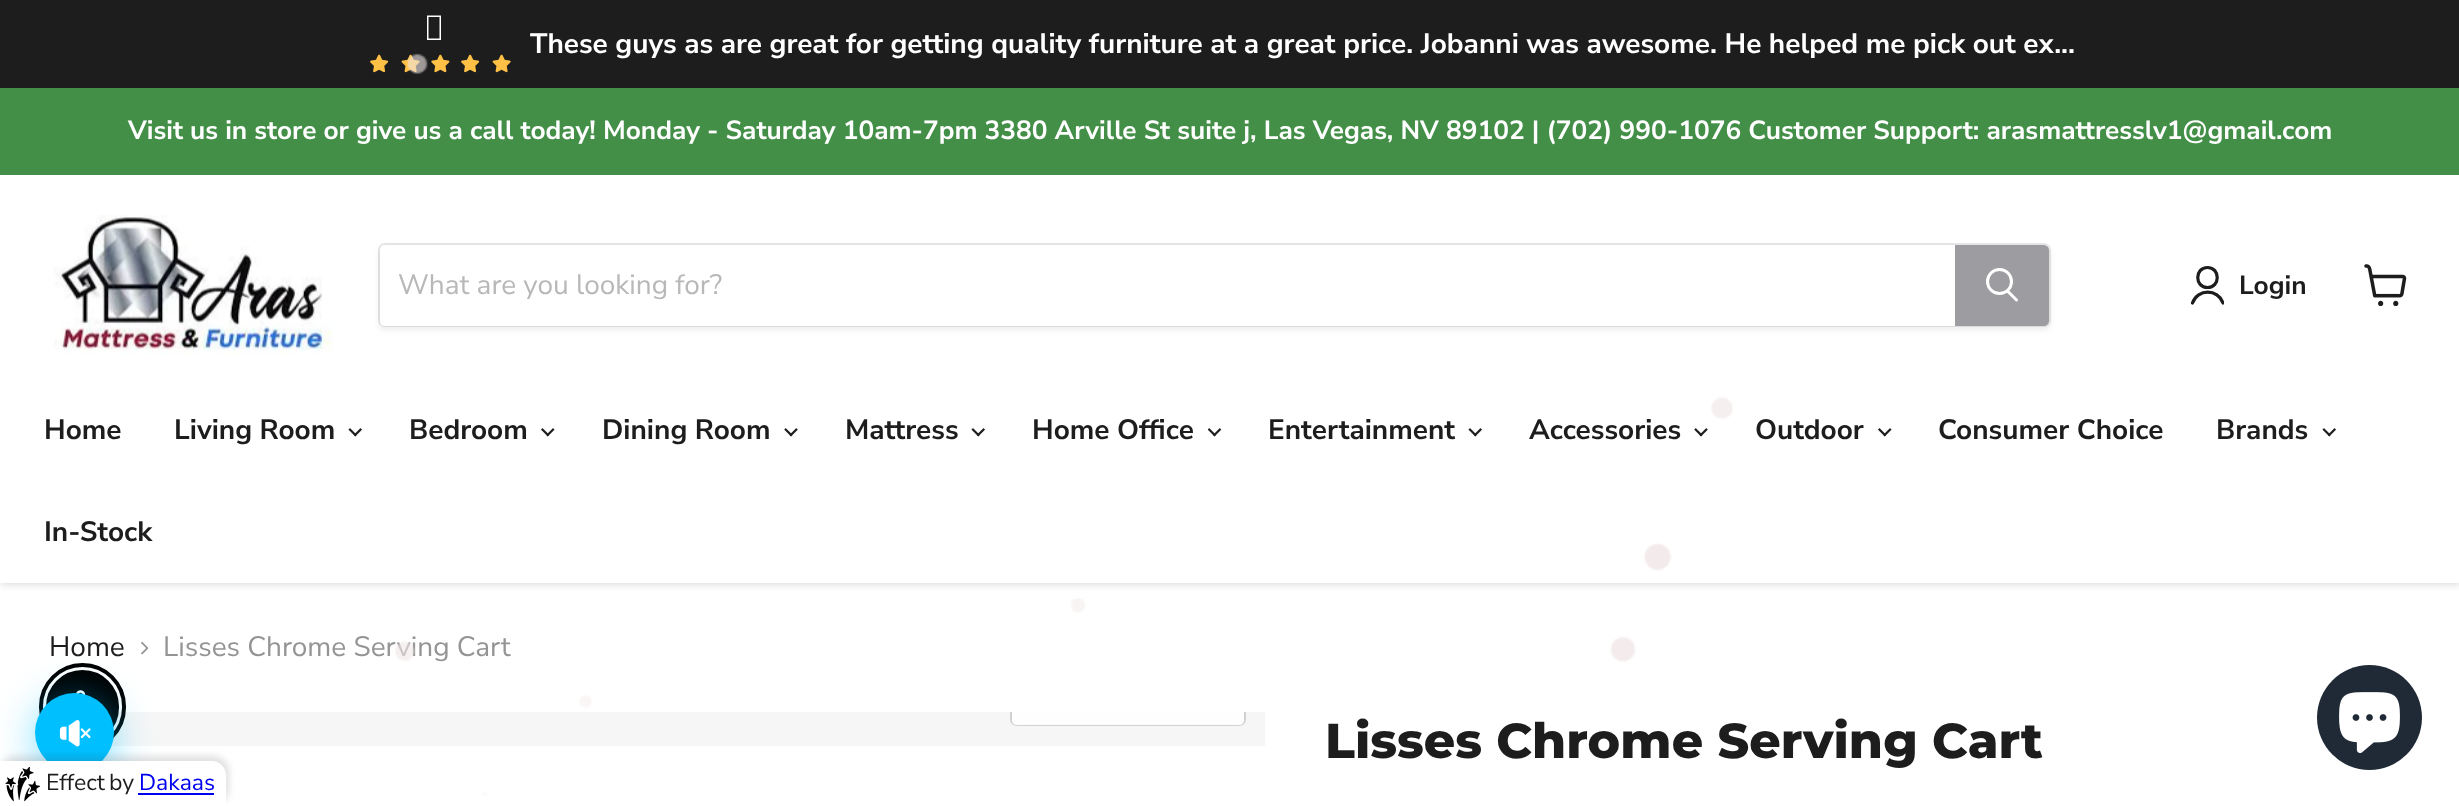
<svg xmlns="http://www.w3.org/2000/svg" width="2459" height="806">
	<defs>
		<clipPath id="clip1"><rect x="49" y="712" width="1216" height="34" /></clipPath>
		<clipPath id="clip2"><rect x="2189" y="264" width="35" height="42" /></clipPath>
	</defs>
	<rect width="100%" height="100%" fill="#FFFFFF" />
	<rect x="0" y="0" width="2459" height="88" fill="#1D1D1D" />
	<path d="M427 40V15.5H441V40ZM428.5 38.5H439.5V17H428.5Z" fill="#FFFFFF" />
	<image x="370" y="54" width="19" height="19" href="assets/img1.png" />
	<image x="401" y="54" width="19" height="19" href="assets/img2.png" />
	<image x="431" y="54" width="19" height="19" href="assets/img3.png" />
	<image x="461" y="54" width="19" height="19" href="assets/img1.png" />
	<image x="492" y="54" width="19" height="19" href="assets/img2.png" />
	<text x="530" y="53" font-family="Nunito Sans" font-size="28" font-weight="700" fill="#FFFFFF">These guys as are great for getting quality furniture at a great price. Jobanni was awesome. He helped me pick out ex...</text>
	<rect x="0" y="88" width="2459" height="87" fill="#438F48" />
	<text x="128" y="139" font-family="Nunito Sans" font-size="26.25" font-weight="700" fill="#FFFFFF">Visit us in store or give us a call today! Monday - Saturday 10am-7pm 3380 Arville St suite j, Las Vegas, NV 89102 | (702) 990-1076 Customer Support: arasmattresslv1@gmail.com</text>
	<rect x="0" y="177" width="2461" height="408" fill="#808080" fill-opacity="0.25" filter="blur(3.5px)" />
	<rect x="0" y="175" width="2459" height="408" fill="#FFFFFF" />
	<rect x="378" y="247" width="1673" height="84" rx="7" fill="#808080" fill-opacity="0.11" filter="blur(2.5px)" />
	<rect x="379" y="244" width="1671" height="82" rx="6" fill="none" stroke="#808080" stroke-opacity="0.2" stroke-width="2" />
	<path d="M385 245H1955V326H385C382 326 380 324 380 321V250C380 247 382 245 385 245Z" fill="#FFFFFF" />
	<text x="398" y="294" font-family="Nunito Sans" font-size="28" fill="#B8B8B8">What are you looking for?</text>
	<text x="409" y="439" font-family="Nunito Sans" font-size="28" font-weight="700" fill="#1D1D1D">Bedroom</text>
	<image x="541" y="428" width="14" height="9" href="assets/img8.png" />
	<text x="602" y="439" font-family="Nunito Sans" font-size="28" font-weight="700" fill="#1D1D1D">Dining Room</text>
	<image x="784" y="428" width="14" height="9" href="assets/img9.png" />
	<text x="845" y="439" font-family="Nunito Sans" font-size="28" font-weight="700" fill="#1D1D1D">Mattress</text>
	<image x="971" y="428" width="14" height="9" href="assets/img7.png" />
	<text x="1032" y="439" font-family="Nunito Sans" font-size="28" font-weight="700" fill="#1D1D1D">Home Office</text>
	<image x="1208" y="428" width="14" height="9" href="assets/img10.png" />
	<text x="1268" y="439" font-family="Nunito Sans" font-size="28" font-weight="700" fill="#1D1D1D">Entertainment</text>
	<image x="1468" y="428" width="14" height="9" href="assets/img7.png" />
	<text x="1529" y="439" font-family="Nunito Sans" font-size="28" font-weight="700" fill="#1D1D1D">Accessories</text>
	<image x="1694" y="428" width="14" height="9" href="assets/img9.png" />
	<text x="163" y="656" font-family="Nunito Sans" font-size="28" fill="#949494">Lisses Chrome Serving Cart</text>
	<rect x="111" y="712" width="1154" height="34" fill="#F6F6F6" />
	<g clip-path="url(#clip1)">
		<rect x="1011" y="675" width="234" height="50" rx="6" fill="none" stroke="#D1D1D1" stroke-width="2" />
	</g>
	<path d="M1012 712H1244V720C1244 723 1242 725 1239 725H1017C1014 725 1012 723 1012 720Z" fill="#FFFFFF" fill-opacity="0.9" />
	<text x="1325" y="758" font-family="Montserrat" font-size="49" font-weight="800" fill="#1D1D1D">Lisses Chrome Serving Cart</text>
	<image x="395" y="53" width="1338" height="743" href="assets/img4.png" />
	<image x="54" y="215" width="279" height="140" href="assets/img5.png" />
	<path d="M1956 246H2044C2046 246 2048 248 2048 250V321C2048 323 2046 325 2044 325H1956Z" fill="#9D9CA1" stroke="#9D9CA1" stroke-width="2" />
	<path d="M2016.5 300L2008 291.5" fill="none" stroke="#FFFFFF" stroke-width="3" stroke-linecap="round" />
	<circle cx="1999.5" cy="281.5" r="12" fill="none" stroke="#FFFFFF" stroke-width="3" />
	<path d="M2207.5 287.5C2220.5 287.5 2220.5 267.5 2207.5 267.5C2194.5 267.5 2194.5 287.5 2207.5 287.5Z" fill="none" stroke="#1D1D1D" stroke-width="3.2" stroke-linecap="round" stroke-linejoin="round" />
	<g clip-path="url(#clip2)">
		<path d="M2223 303C2218 288.5 2197.5 288.5 2192.5 303" fill="none" stroke="#1D1D1D" stroke-width="3.2" stroke-linecap="round" stroke-linejoin="round" />
	</g>
	<text x="2239" y="294" font-family="Nunito Sans" font-size="26.25" font-weight="700" fill="#1D1D1D">Login</text>
	<image x="2364" y="264" width="43" height="42" href="assets/img6.png" />
	<g font-family="Nunito Sans" font-size="28" font-weight="700" fill="#1D1D1D">
		<text x="44" y="439">Home</text>
		<text x="174" y="439">Living Room</text>
	</g>
	<image x="348" y="428" width="14" height="9" href="assets/img7.png" />
	<text x="1755" y="439" font-family="Nunito Sans" font-size="28" font-weight="700" fill="#1D1D1D">Outdoor</text>
	<image x="1878" y="428" width="14" height="9" href="assets/img8.png" />
	<g font-family="Nunito Sans" font-size="28" font-weight="700" fill="#1D1D1D">
		<text x="1938" y="439">Consumer Choice</text>
		<text x="2216" y="439">Brands</text>
	</g>
	<image x="2322" y="428" width="14" height="9" href="assets/img7.png" />
	<text x="44" y="541" font-family="Nunito Sans" font-size="28" font-weight="700" fill="#1D1D1D">In-Stock</text>
	<image x="141" y="641" width="8" height="14" href="assets/img12.png" />
	<rect x="41" y="665" width="83" height="84" rx="41.5" fill="none" stroke="#000000" stroke-width="4" />
	<rect x="47" y="671" width="71" height="72" rx="35.5" fill="#000000" stroke="#000000" stroke-width="2" />
	<image x="75" y="690" width="11" height="5" href="assets/img13.png" />
	<rect x="35" y="700" width="79" height="79" rx="39.5" fill="#00BFFF" fill-opacity="0.5" filter="blur(21px)" />
	<circle cx="74.5" cy="732.5" r="39.5" fill="#00BFFF" />
	<image x="59" y="720" width="32" height="27" href="assets/img11.png" />
	<text x="49" y="656" font-family="Nunito Sans" font-size="28" fill="#1D1D1D">Home</text>
	<circle cx="2369.5" cy="717.5" r="52.5" fill="#202A36" />
	<image x="2339" y="692" width="61" height="61" href="assets/img14.png" />
	<rect x="0" y="756" width="229" height="49" rx="16" fill="#403C43" fill-opacity="0.16" filter="blur(3.5px)" />
	<path d="M0 761H212C219.5 761 226 767.5 226 775V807H0Z" fill="#FFFFFF" />
	<image x="5" y="767" width="35" height="35" href="assets/img15.png" />
	<g font-family="Nunito Sans" font-size="23" fill="#1D1D1D">
		<text x="46" y="790">Effect</text>
		<text x="109" y="790">by</text>
	</g>
	<text x="139" y="790" font-family="Nunito Sans" font-size="23" fill="#0000EE">Dakaas</text>
	<rect x="138" y="793" width="76" height="2" fill="#0000EE" />
</svg>
